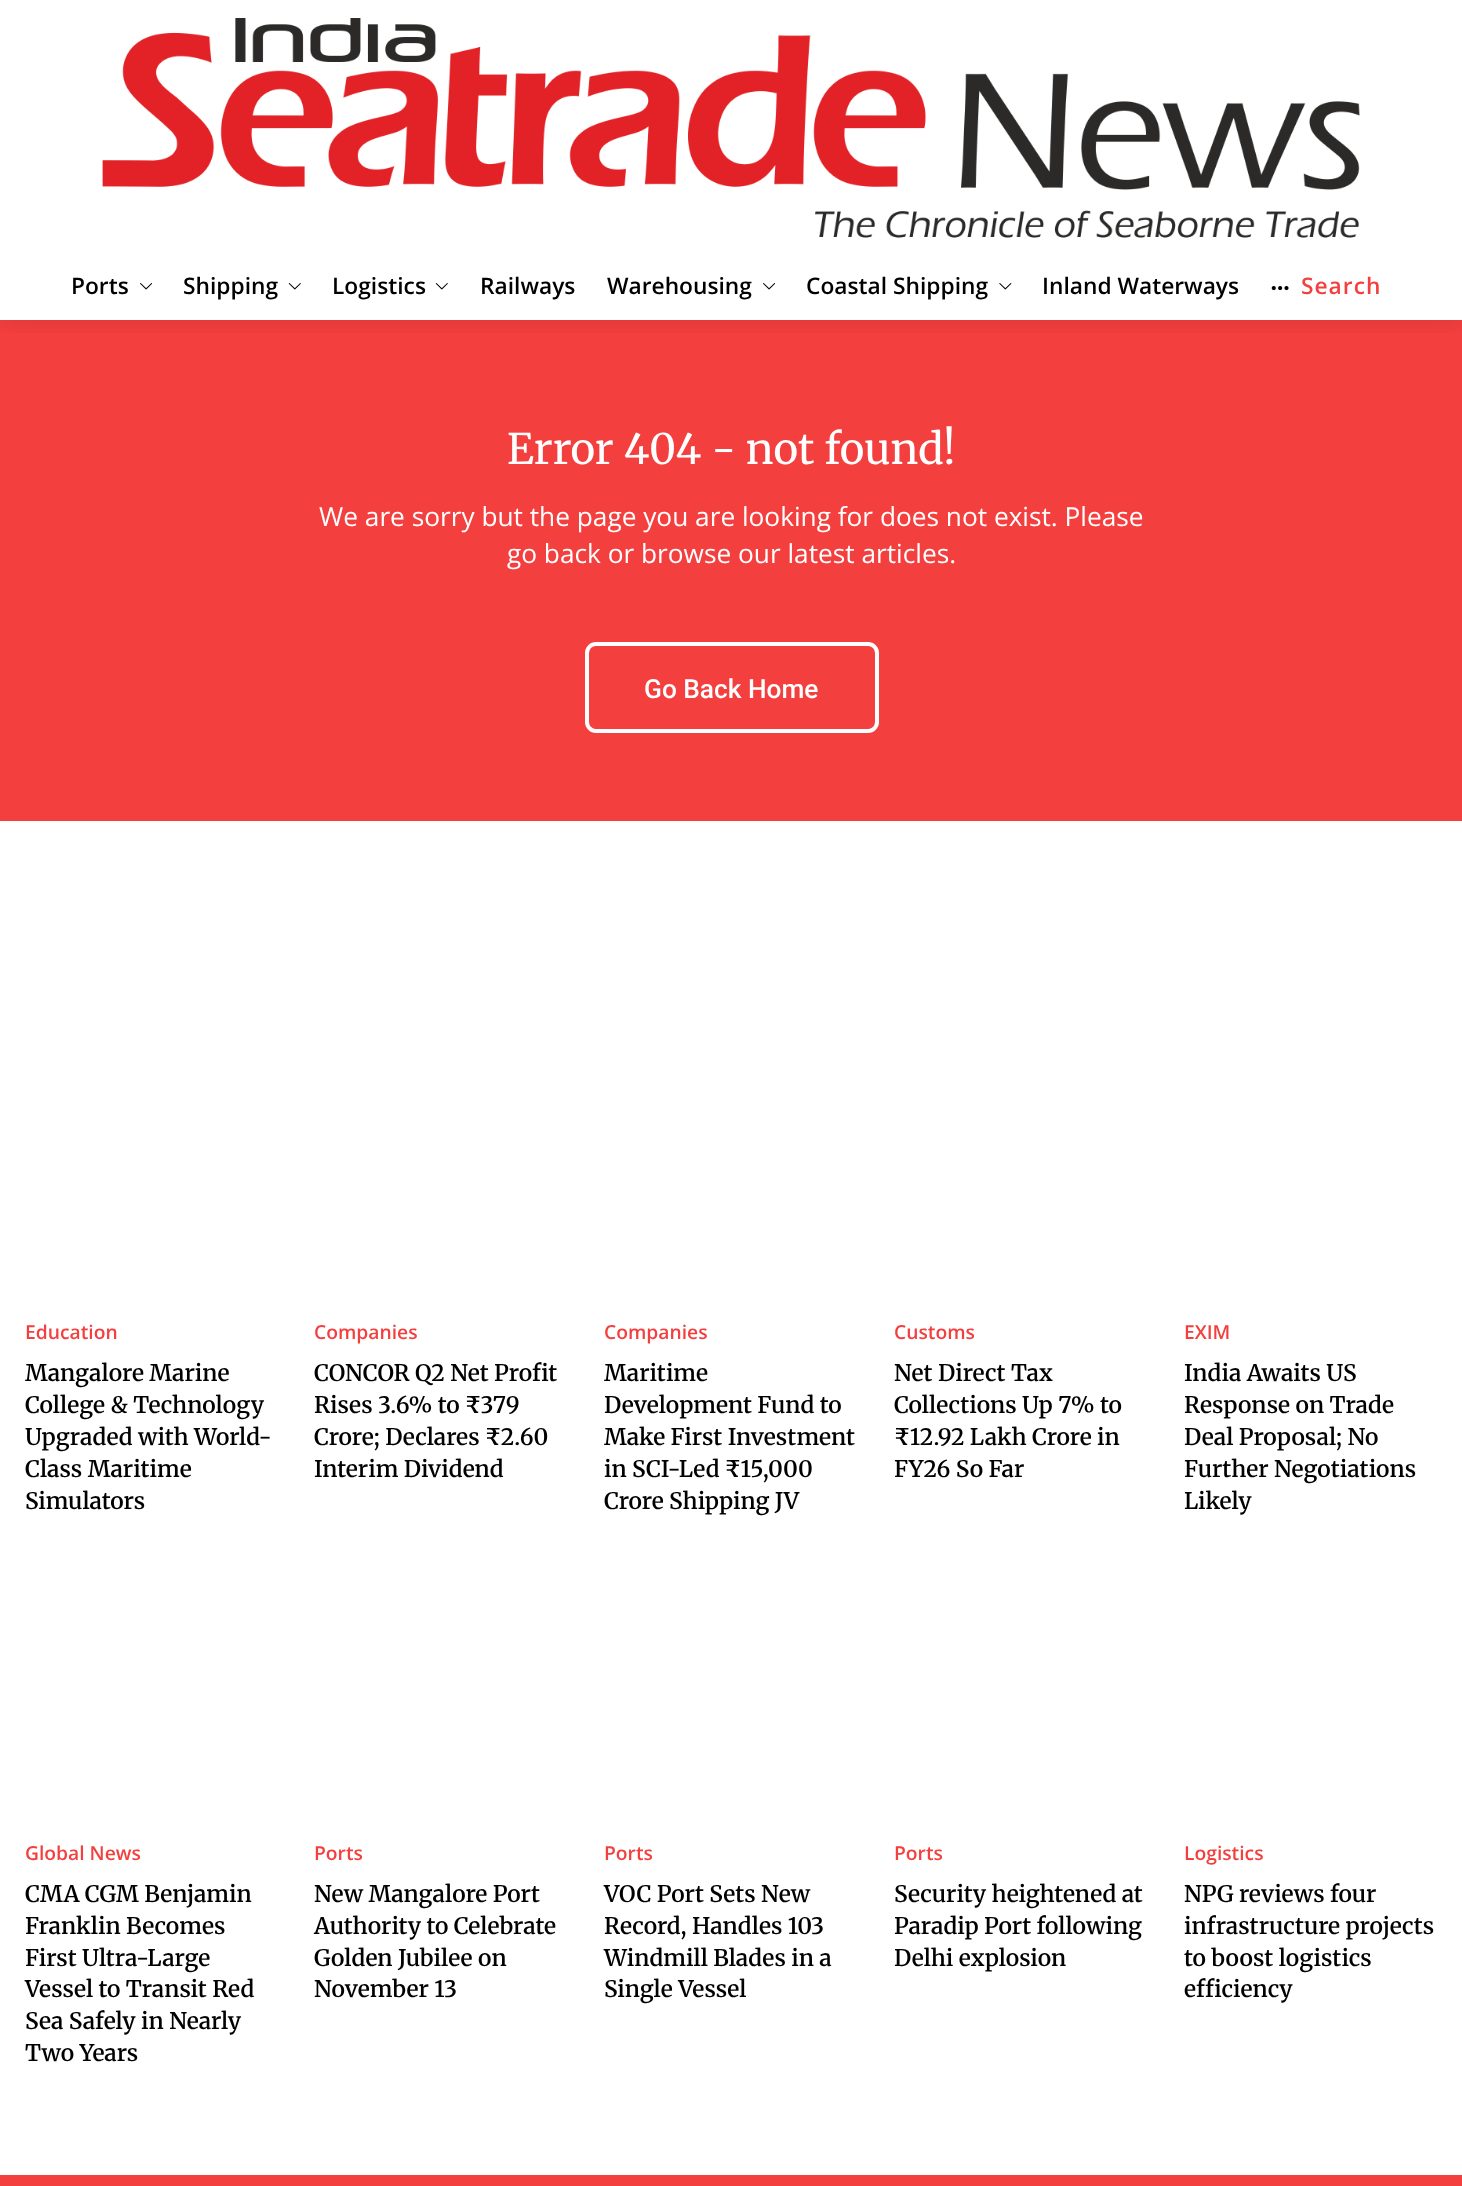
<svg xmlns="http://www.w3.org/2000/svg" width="1462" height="2186">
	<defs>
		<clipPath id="clip1"><rect x="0" y="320" width="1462" height="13" /></clipPath>
	</defs>
	<rect width="100%" height="100%" fill="#FFFFFF" />
	<image x="102" y="18" width="1258" height="220" href="assets/img1.png" />
	<rect x="0" y="320" width="1462" height="501" fill="#F43F3F" />
	<g clip-path="url(#clip1)">
		<rect x="0" y="0" width="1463" height="320" fill="#000000" fill-opacity="0.12" filter="blur(13px)" />
	</g>
	<text x="71" y="294" font-family="Open Sans" font-size="22.75" font-weight="600" fill="#000000">Ports</text>
	<image x="140" y="283" width="13" height="7" href="assets/img2.png" />
	<text x="183" y="294" font-family="Open Sans" font-size="22.75" font-weight="600" fill="#000000">Shipping</text>
	<image x="288" y="283" width="13" height="7" href="assets/img3.png" />
	<text x="332" y="294" font-family="Open Sans" font-size="22.75" font-weight="600" fill="#000000">Logistics</text>
	<image x="435" y="283" width="13" height="7" href="assets/img3.png" />
	<g font-family="Open Sans" font-size="22.75" font-weight="600" fill="#000000">
		<text x="480" y="294">Railways</text>
		<text x="607" y="294">Warehousing</text>
	</g>
	<image x="763" y="283" width="13" height="7" href="assets/img2.png" />
	<text x="806" y="294" font-family="Open Sans" font-size="22.75" font-weight="600" fill="#000000">Coastal Shipping</text>
	<image x="999" y="283" width="13" height="7" href="assets/img4.png" />
	<text x="1042" y="294" font-family="Open Sans" font-size="22.75" font-weight="600" fill="#000000">Inland Waterways</text>
	<image x="1271" y="286" width="18" height="5" href="assets/img5.png" />
	<text x="1301" y="294" font-family="Open Sans" font-size="22.75" font-weight="600" letter-spacing="1" fill="#F43F3F">Search</text>
	<text x="507" y="464" font-family="Merriweather" font-size="42" fill="#FFFFFF">Error 404 - not found!</text>
	<g font-family="Open Sans" font-size="26.25" fill="#FFFFFF">
		<text x="319" y="526">We are sorry but the page you are looking for does not exist. Please</text>
		<text x="507" y="563">go back or browse our latest articles.</text>
	</g>
	<rect x="587" y="644" width="290" height="87" rx="9" fill="none" stroke="#FFFFFF" stroke-width="4" />
	<text x="644" y="698" font-family="Roboto" font-size="26.25" font-weight="500" fill="#FFFFFF">Go Back Home</text>
	<text x="25" y="1339" font-family="Open Sans" font-size="19.25" font-weight="600" fill="#F43F3F">Education</text>
	<g font-family="Merriweather" font-size="22.75" font-weight="600" fill="#000000">
		<text x="25" y="1381">Mangalore Marine</text>
		<text x="25" y="1413">College &amp; Technology</text>
		<text x="25" y="1445">Upgraded with World-</text>
		<text x="25" y="1477">Class Maritime</text>
		<text x="25" y="1509">Simulators</text>
	</g>
	<text x="314" y="1339" font-family="Open Sans" font-size="19.25" font-weight="600" fill="#F43F3F">Companies</text>
	<g font-family="Merriweather" font-size="22.75" font-weight="600" fill="#000000">
		<text x="314" y="1381">CONCOR Q2 Net Profit</text>
		<text x="314" y="1413">Rises 3.6% to ₹379</text>
		<text x="314" y="1445">Crore; Declares ₹2.60</text>
		<text x="314" y="1477">Interim Dividend</text>
	</g>
	<text x="604" y="1339" font-family="Open Sans" font-size="19.25" font-weight="600" fill="#F43F3F">Companies</text>
	<g font-family="Merriweather" font-size="22.75" font-weight="600" fill="#000000">
		<text x="604" y="1381">Maritime</text>
		<text x="604" y="1413">Development Fund to</text>
		<text x="604" y="1445">Make First Investment</text>
		<text x="604" y="1477">in SCI-Led ₹15,000</text>
		<text x="604" y="1509">Crore Shipping JV</text>
	</g>
	<text x="894" y="1339" font-family="Open Sans" font-size="19.25" font-weight="600" fill="#F43F3F">Customs</text>
	<g font-family="Merriweather" font-size="22.75" font-weight="600" fill="#000000">
		<text x="894" y="1381">Net Direct Tax</text>
		<text x="894" y="1413">Collections Up 7% to</text>
		<text x="894" y="1445">₹12.92 Lakh Crore in</text>
		<text x="894" y="1477">FY26 So Far</text>
	</g>
	<text x="1184" y="1339" font-family="Open Sans" font-size="19.25" font-weight="600" fill="#F43F3F">EXIM</text>
	<g font-family="Merriweather" font-size="22.75" font-weight="600" fill="#000000">
		<text x="1184" y="1381">India Awaits US</text>
		<text x="1184" y="1413">Response on Trade</text>
		<text x="1184" y="1445">Deal Proposal; No</text>
		<text x="1184" y="1477">Further Negotiations</text>
		<text x="1184" y="1509">Likely</text>
	</g>
	<text x="25" y="1860" font-family="Open Sans" font-size="19.25" font-weight="600" fill="#F43F3F">Global News</text>
	<g font-family="Merriweather" font-size="22.75" font-weight="600" fill="#000000">
		<text x="25" y="1902">CMA CGM Benjamin</text>
		<text x="25" y="1934">Franklin Becomes</text>
		<text x="25" y="1966">First Ultra-Large</text>
		<text x="25" y="1997">Vessel to Transit Red</text>
		<text x="25" y="2029">Sea Safely in Nearly</text>
		<text x="25" y="2061">Two Years</text>
	</g>
	<text x="314" y="1860" font-family="Open Sans" font-size="19.25" font-weight="600" fill="#F43F3F">Ports</text>
	<g font-family="Merriweather" font-size="22.75" font-weight="600" fill="#000000">
		<text x="314" y="1902">New Mangalore Port</text>
		<text x="314" y="1934">Authority to Celebrate</text>
		<text x="314" y="1966">Golden Jubilee on</text>
		<text x="314" y="1997">November 13</text>
	</g>
	<text x="604" y="1860" font-family="Open Sans" font-size="19.25" font-weight="600" fill="#F43F3F">Ports</text>
	<g font-family="Merriweather" font-size="22.75" font-weight="600" fill="#000000">
		<text x="604" y="1902">VOC Port Sets New</text>
		<text x="604" y="1934">Record, Handles 103</text>
		<text x="604" y="1966">Windmill Blades in a</text>
		<text x="604" y="1997">Single Vessel</text>
	</g>
	<text x="894" y="1860" font-family="Open Sans" font-size="19.25" font-weight="600" fill="#F43F3F">Ports</text>
	<g font-family="Merriweather" font-size="22.75" font-weight="600" fill="#000000">
		<text x="894" y="1902">Security heightened at</text>
		<text x="894" y="1934">Paradip Port following</text>
		<text x="894" y="1966">Delhi explosion</text>
	</g>
	<text x="1184" y="1860" font-family="Open Sans" font-size="19.25" font-weight="600" fill="#F43F3F">Logistics</text>
	<g font-family="Merriweather" font-size="22.75" font-weight="600" fill="#000000">
		<text x="1184" y="1902">NPG reviews four</text>
		<text x="1184" y="1934">infrastructure projects</text>
		<text x="1184" y="1966">to boost logistics</text>
		<text x="1184" y="1997">efficiency</text>
	</g>
	<rect x="0" y="2175" width="1462" height="11" fill="#F43F3F" />
</svg>
